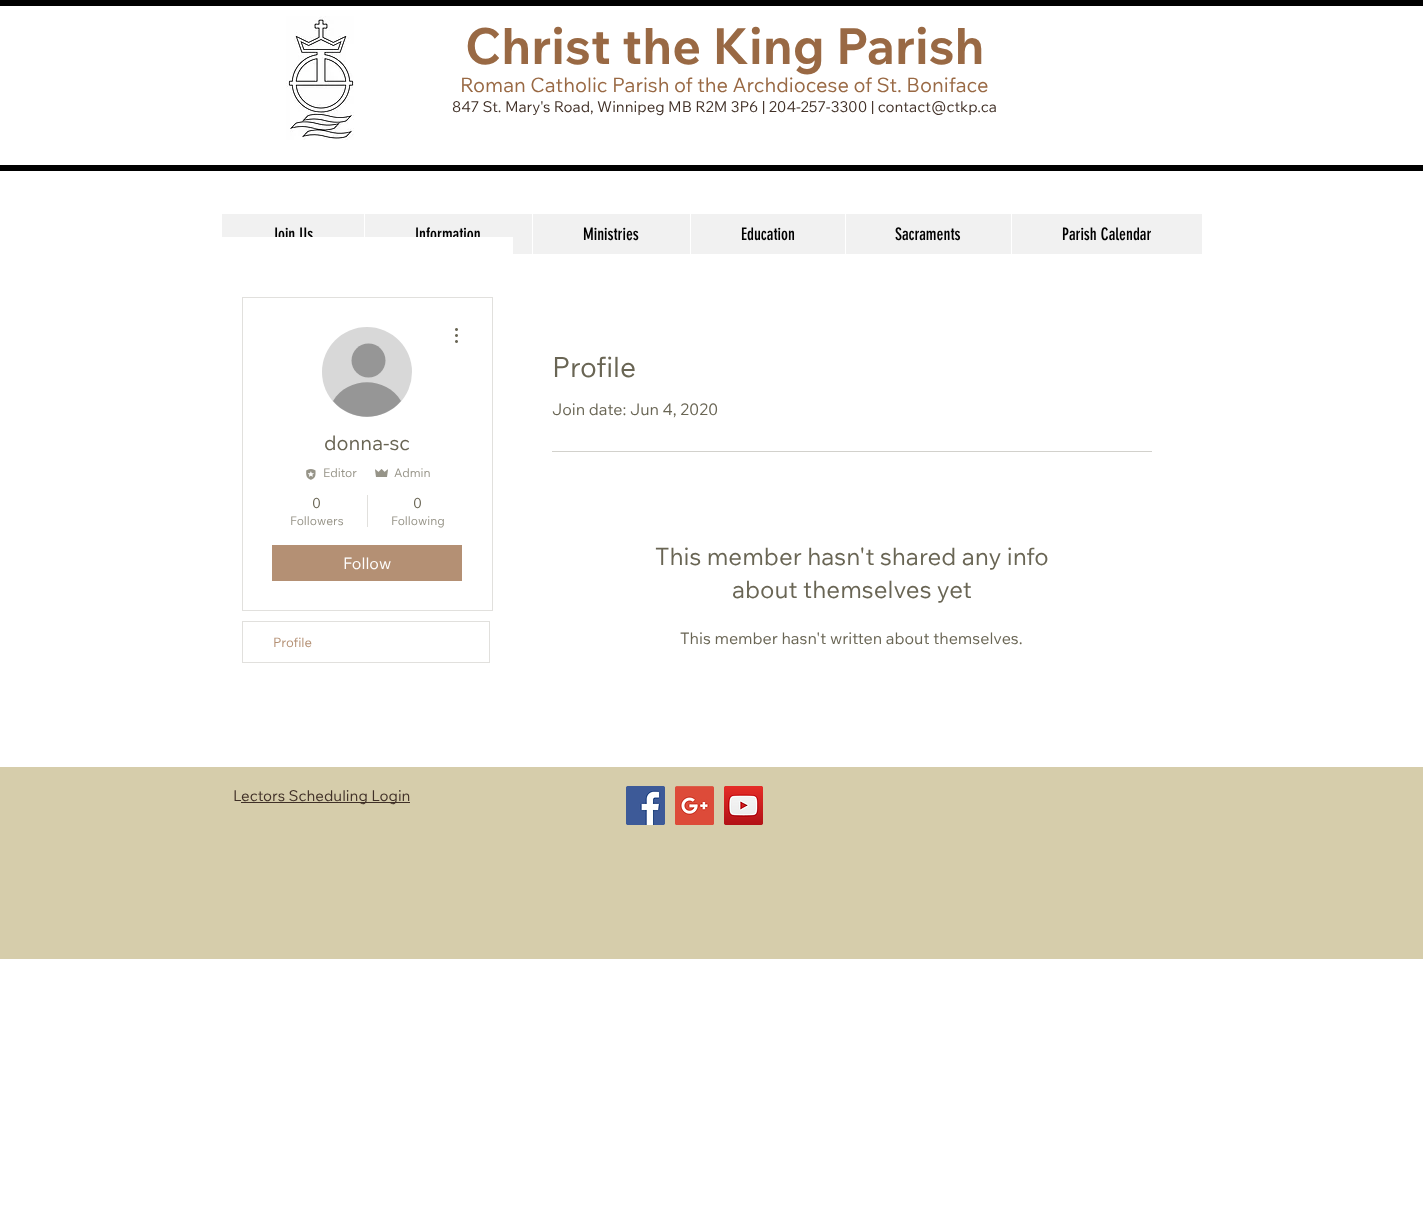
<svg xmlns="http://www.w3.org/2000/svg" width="1423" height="1205">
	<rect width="100%" height="100%" fill="#FFFFFF" />
	<rect x="0" y="0" width="1423" height="6" fill="#000000" />
	<rect x="0" y="165" width="1423" height="6" fill="#000000" />
	<image x="286" y="16" width="68" height="124" href="assets/img1.png" />
	<text x="465" y="64" font-family="Wix Madefor Text" font-size="50" font-weight="700" fill="#996944">Christ the King Parish</text>
	<text x="460" y="92" font-family="Wix Madefor Text" font-size="20" fill="#996944">Roman Catholic Parish of the Archdiocese of St. Boniface</text>
	<text x="452" y="112" font-family="Wix Madefor Text" font-size="15" fill="#403027">847 St. Mary's Road, Winnipeg MB R2M 3P6 | 204-257-3300 | contact@ctkp.ca</text>
	<rect x="222" y="214" width="980" height="40" fill="#F1F1F1" />
	<text x="272" y="240" font-family="'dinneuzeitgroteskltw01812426'" font-size="17" fill="#000000">Join Us</text>
	<rect x="364" y="214" width="1" height="23" fill="#FFFFFF" />
	<text x="415" y="240" font-family="'dinneuzeitgroteskltw01812426'" font-size="17" fill="#000000">Information</text>
	<rect x="532" y="214" width="1" height="40" fill="#FFFFFF" />
	<text x="583" y="240" font-family="'dinneuzeitgroteskltw01812426'" font-size="17" fill="#000000">Ministries</text>
	<rect x="690" y="214" width="1" height="40" fill="#FFFFFF" />
	<text x="741" y="240" font-family="'dinneuzeitgroteskltw01812426'" font-size="17" fill="#000000">Education</text>
	<rect x="845" y="214" width="1" height="40" fill="#FFFFFF" />
	<text x="895" y="240" font-family="'dinneuzeitgroteskltw01812426'" font-size="17" fill="#000000">Sacraments</text>
	<rect x="1011" y="214" width="1" height="40" fill="#FFFFFF" />
	<text x="1062" y="240" font-family="'dinneuzeitgroteskltw01812426'" font-size="17" fill="#000000">Parish Calendar</text>
	<rect x="222" y="237" width="291" height="17" fill="#FFFFFF" />
	<rect x="242.5" y="297.5" width="250" height="313" fill="none" stroke="#E1E0DD" />
	<circle cx="367" cy="372" r="45" fill="#D8D8D8" />
	<circle cx="368.5" cy="360.5" r="17" fill="#969696" />
	<path d="M401 401C383 422 351 422 333 401C348 376 386 376 401 401Z" fill="#969696" />
	<image x="455" y="328" width="3" height="15" href="assets/img2.png" />
	<text x="324" y="450" font-family="Wix Madefor Text" font-size="20" fill="#696554">donna-sc</text>
	<image x="306" y="469" width="10" height="11" href="assets/img3.png" />
	<text x="323" y="477" font-family="Wix Madefor Text" font-size="12" fill="#969387">Editor</text>
	<image x="375" y="469" width="13" height="8" href="assets/img4.png" />
	<text x="394" y="477" font-family="Wix Madefor Text" font-size="12" fill="#969387">Admin</text>
	<text x="312" y="508" font-family="Wix Madefor Text" font-size="14" fill="#696554">0</text>
	<text x="290" y="525" font-family="Wix Madefor Text" font-size="12" fill="#969387">Followers</text>
	<rect x="367" y="495" width="1" height="32" fill="#E1E0DD" />
	<text x="413" y="508" font-family="Wix Madefor Text" font-size="14" fill="#696554">0</text>
	<text x="391" y="525" font-family="Wix Madefor Text" font-size="12" fill="#969387">Following</text>
	<rect x="272" y="545" width="190" height="36" fill="#B49074" />
	<text x="343" y="569" font-family="Wix Madefor Text" font-size="16" fill="#FFFFFF">Follow</text>
	<rect x="242.5" y="621.5" width="247" height="41" fill="none" stroke="#E1E0DD" />
	<text x="273" y="647" font-family="Wix Madefor Text" font-size="13" fill="#B49074">Profile</text>
	<text x="552" y="377" font-family="Wix Madefor Text" font-size="28" fill="#696554">Profile</text>
	<text x="552" y="415" font-family="Wix Madefor Text" font-size="16" fill="#696554">Join date: Jun 4, 2020</text>
	<rect x="552" y="451" width="600" height="1" fill="#D2D1CC" />
	<g font-family="Wix Madefor Text" font-size="24" fill="#696554">
		<text x="655" y="565">This member hasn't shared any info</text>
		<text x="732" y="598">about themselves yet</text>
	</g>
	<text x="680" y="644" font-family="Wix Madefor Text" font-size="16" fill="#696554">This member hasn't written about themselves.</text>
	<rect x="0" y="767" width="1423" height="192" fill="#D6CDAB" />
	<text x="233" y="801" font-family="Wix Madefor Text" font-size="15" fill="#403027">L</text>
	<rect x="241" y="802" width="169" height="1" fill="#403027" />
	<text x="241" y="801" font-family="Wix Madefor Text" font-size="15" fill="#403027">ectors Scheduling Login</text>
	<image x="626" y="786" width="39" height="39" href="assets/img5.png" />
	<image x="675" y="786" width="39" height="39" href="assets/img6.png" />
	<image x="724" y="786" width="39" height="39" href="assets/img7.png" />
</svg>
